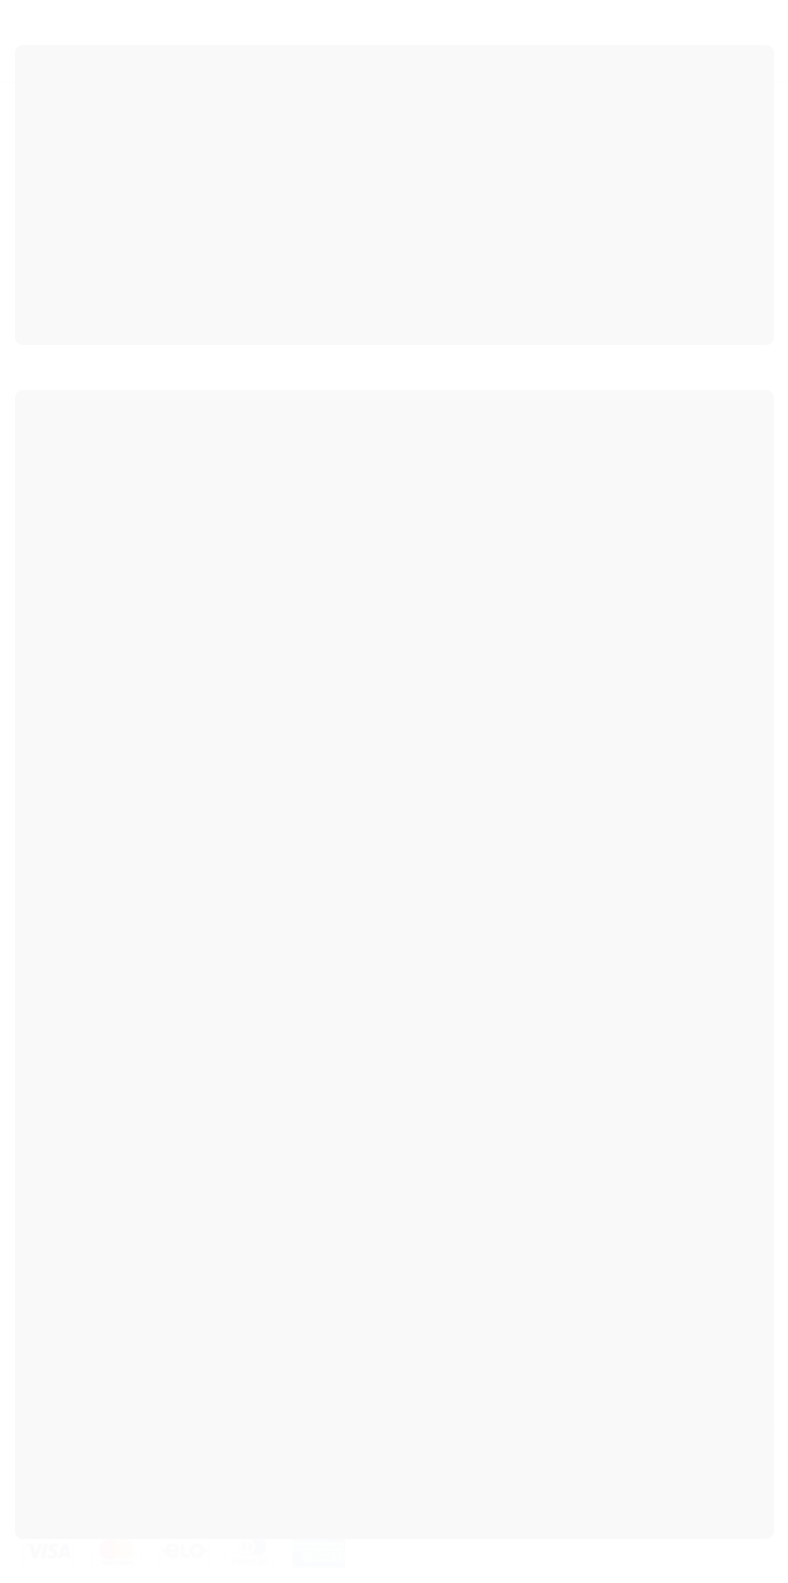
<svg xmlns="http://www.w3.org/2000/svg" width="788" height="1583">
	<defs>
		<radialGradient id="g1" gradientUnits="userSpaceOnUse" cx="0" cy="0" r="1" gradientTransform="matrix(558 0 0 1120 395 792)"><stop offset="0" stop-color="#FFFFFF" stop-opacity="0.99" /><stop offset="1" stop-color="#FFFFFF" stop-opacity="0.98" /></radialGradient>
	</defs>
	<rect width="100%" height="100%" fill="#FFFFFF" />
	<rect x="0" y="81" width="788" height="2" fill="#DDDDDD" />
	<rect x="0" y="150" width="788" height="2" fill="#EEEEEE" />
	<rect x="0" y="1430" width="788" height="2" fill="#EEEEEE" />
	<image x="22" y="1538" width="53" height="30" href="assets/img1.png" />
	<image x="90" y="1539" width="53" height="29" href="assets/img2.png" />
	<image x="157" y="1539" width="53" height="29" href="assets/img3.png" />
	<image x="225" y="1539" width="53" height="29" href="assets/img4.png" />
	<image x="292" y="1539" width="53" height="29" href="assets/img5.png" />
	<rect x="0" y="81" width="788" height="1487" fill="url(#g1)" />
	<rect x="15" y="45" width="759" height="300" rx="8" fill="#F9F9F9" />
	<rect x="15" y="390" width="759" height="1149" rx="8" fill="#F9F9F9" />
</svg>
